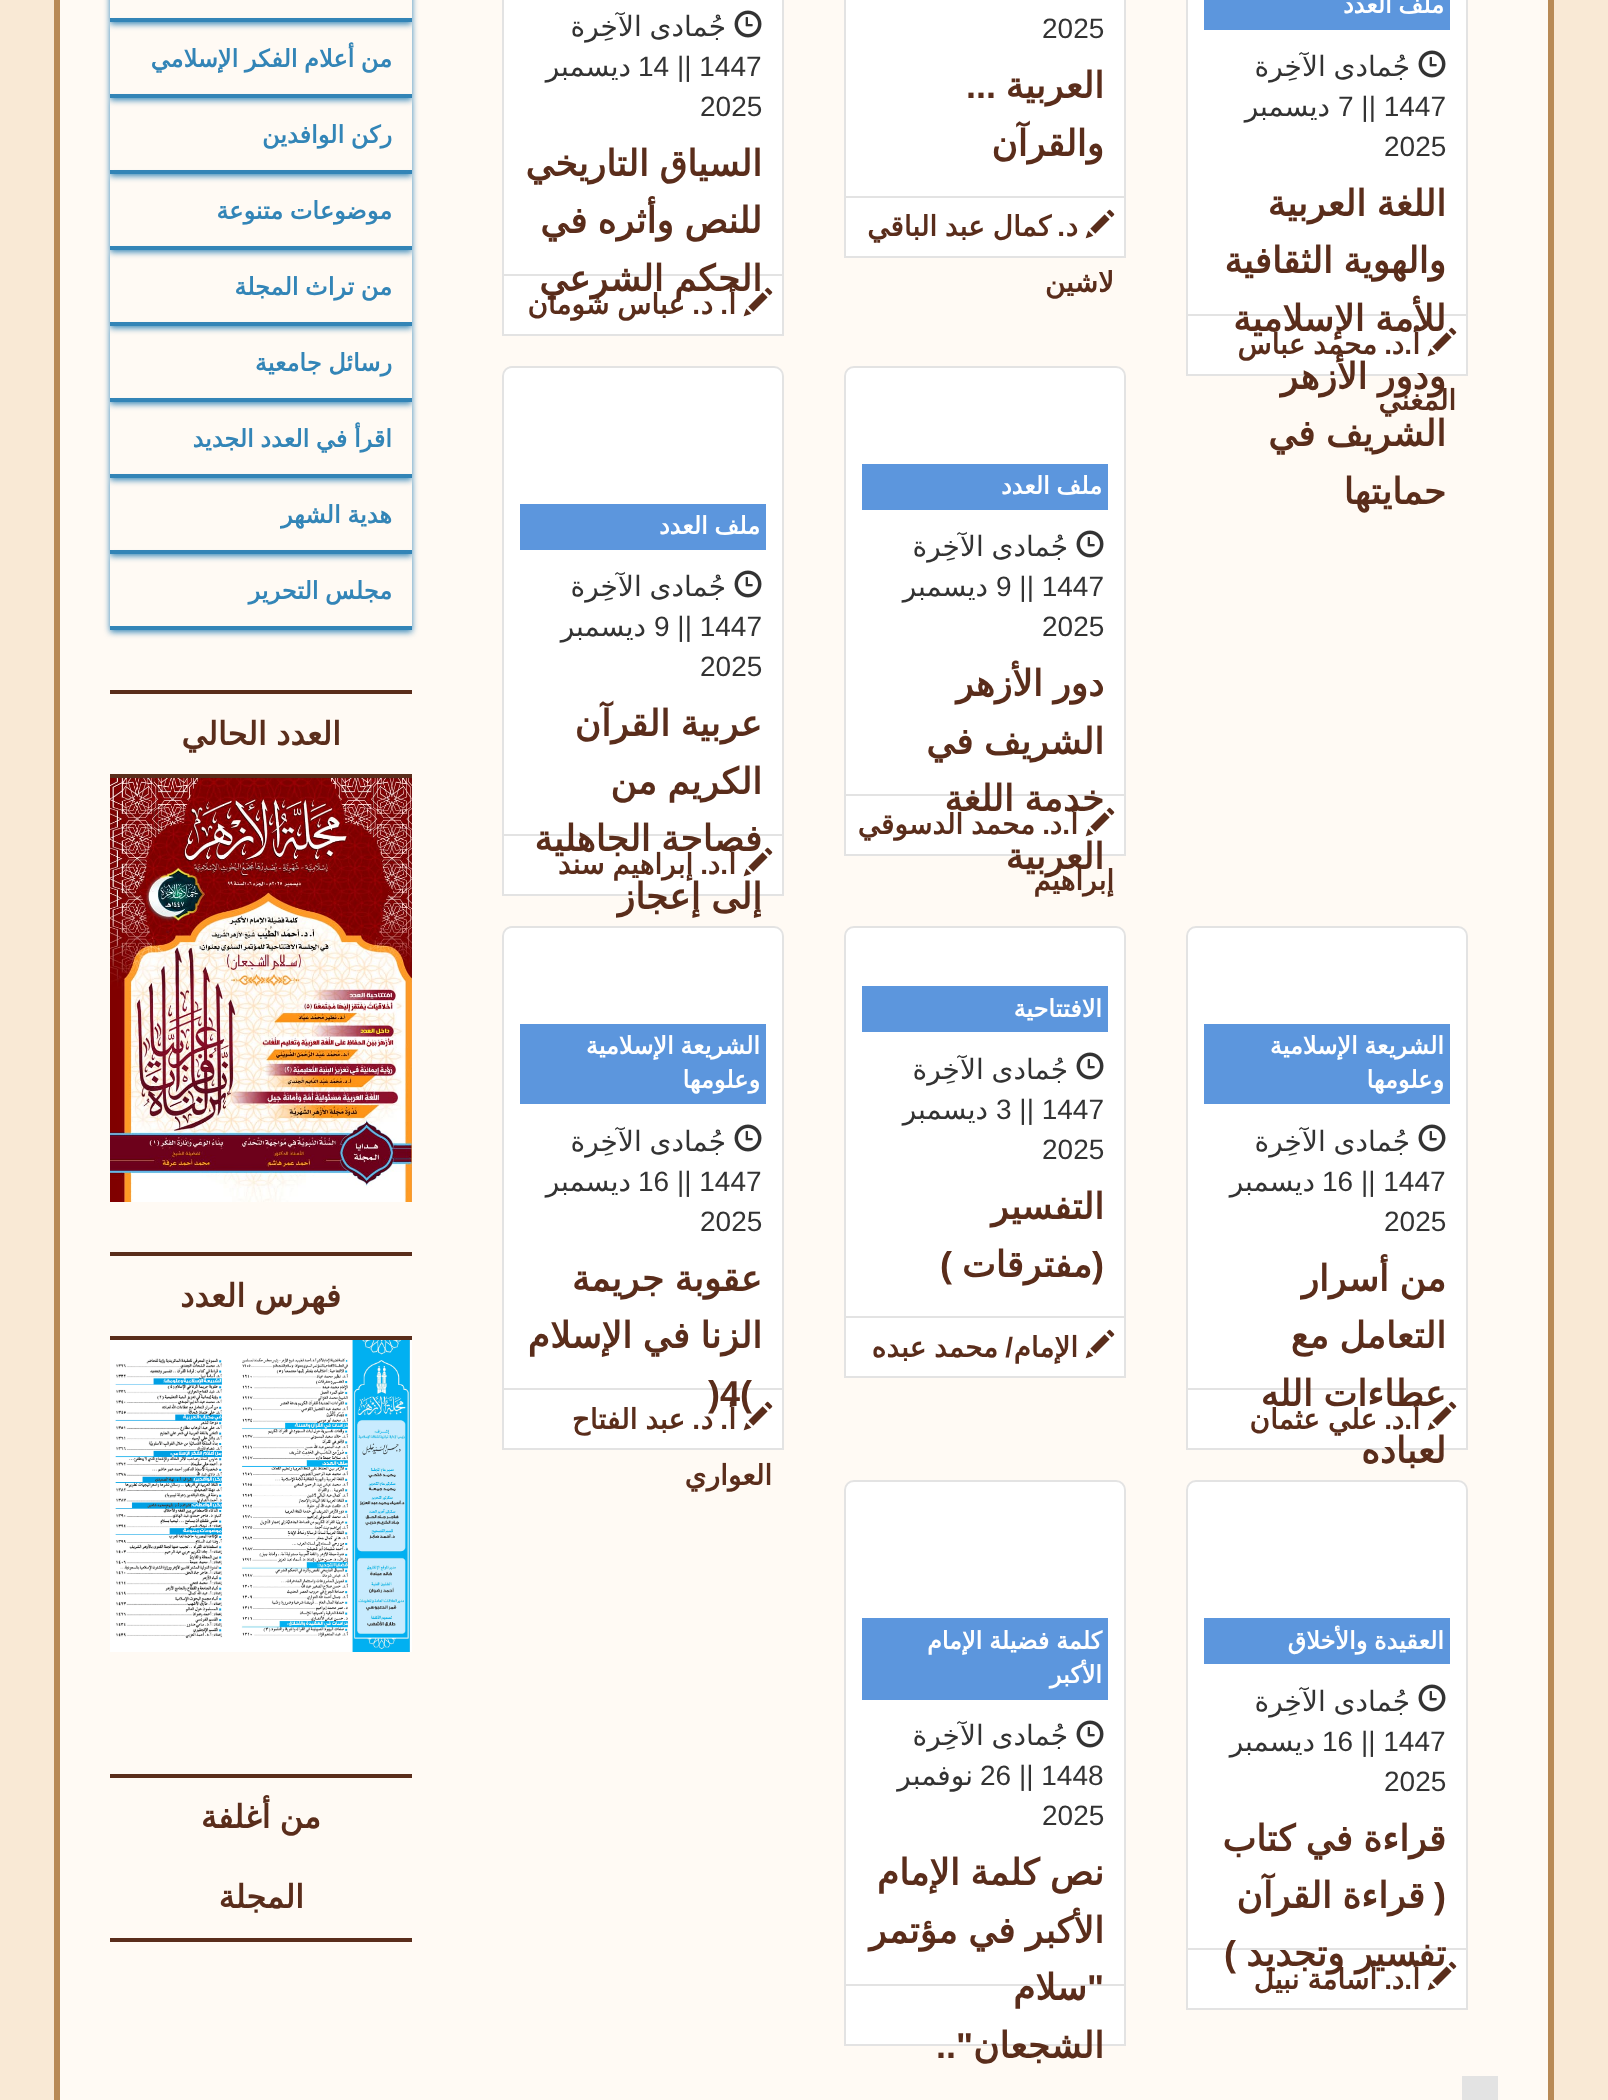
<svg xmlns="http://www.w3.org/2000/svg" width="1608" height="2100">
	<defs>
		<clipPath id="clip1"><path d="M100 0H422V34H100ZM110-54H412V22H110Z" clip-rule="evenodd" /></clipPath>
		<clipPath id="clip2"><path d="M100 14H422V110H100ZM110 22H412V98H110Z" clip-rule="evenodd" /></clipPath>
		<clipPath id="clip3"><path d="M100 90H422V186H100ZM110 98H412V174H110Z" clip-rule="evenodd" /></clipPath>
		<clipPath id="clip4"><path d="M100 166H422V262H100ZM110 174H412V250H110Z" clip-rule="evenodd" /></clipPath>
		<clipPath id="clip5"><path d="M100 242H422V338H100ZM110 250H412V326H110Z" clip-rule="evenodd" /></clipPath>
		<clipPath id="clip6"><path d="M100 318H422V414H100ZM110 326H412V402H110Z" clip-rule="evenodd" /></clipPath>
		<clipPath id="clip7"><path d="M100 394H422V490H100ZM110 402H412V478H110Z" clip-rule="evenodd" /></clipPath>
		<clipPath id="clip8"><path d="M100 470H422V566H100ZM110 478H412V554H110Z" clip-rule="evenodd" /></clipPath>
		<clipPath id="clip9"><path d="M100 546H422V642H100ZM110 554H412V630H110Z" clip-rule="evenodd" /></clipPath>
	</defs>
	<rect width="100%" height="100%" fill="#F9E9D5" />
	<rect x="60" y="0" width="1488" height="2100" fill="#FFFAF4" />
	<rect x="1548" y="0" width="6" height="2100" fill="#B88A56" />
	<rect x="54" y="0" width="6" height="2100" fill="#B88A56" />
	<rect x="1187" y="-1" width="280" height="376" fill="#FFFFFF" stroke="#E3E3E3" stroke-width="2" />
	<rect x="1204" y="0" width="246" height="30" fill="#5C96DD" />
	<text x="1444" y="13" word-spacing="-1" font-family="DejaVu Sans" font-size="24" font-weight="700" direction="rtl" fill="#FFFFFF">ملف العدد</text>
	<image x="1418" y="50" width="28" height="28" href="assets/img1.png" />
	<text x="1410" y="76" word-spacing="-1" font-family="DejaVu Sans" font-size="28" direction="rtl" fill="#333333">جُمادى الآخِرة</text>
	<text x="1338" y="116" font-family="Liberation Sans" font-size="28" fill="#333333">7 || 1447</text>
	<text x="1330" y="116" font-family="DejaVu Sans" font-size="28" direction="rtl" fill="#333333">ديسمبر</text>
	<text x="1384" y="156" font-family="Liberation Sans" font-size="28" fill="#333333">2025</text>
	<g font-family="DejaVu Sans" font-size="36" font-weight="700" direction="rtl" fill="#5A2D1B">
		<text x="1446" y="216" word-spacing="-1">اللغة العربية</text>
		<text x="1446" y="273" word-spacing="-1">والهوية الثقافية</text>
	</g>
	<rect x="1188" y="314" width="278" height="2" fill="#E3E3E3" />
	<g font-family="DejaVu Sans" font-size="36" font-weight="700" direction="rtl" fill="#5A2D1B">
		<text x="1446" y="331" word-spacing="-1">للأمة الإسلامية</text>
		<text x="1446" y="389" word-spacing="-1">ودور الأزهر</text>
		<text x="1446" y="446" word-spacing="-1">الشريف في</text>
		<text x="1446" y="504">حمايتها</text>
	</g>
	<image x="1427" y="327" width="30" height="30" href="assets/img2.png" />
	<text x="1420" y="354" font-family="DejaVu Sans" font-size="28" font-weight="700" direction="rtl" fill="#5A2D1B">أ</text>
	<text x="1412" y="354" font-family="Liberation Sans" font-size="28" font-weight="700" direction="rtl" fill="#5A2D1B">.</text>
	<text x="1404" y="354" font-family="DejaVu Sans" font-size="28" font-weight="700" direction="rtl" fill="#5A2D1B">د</text>
	<text x="1392" y="354" font-family="Liberation Sans" font-size="28" font-weight="700" direction="rtl" fill="#5A2D1B">.</text>
	<g font-family="DejaVu Sans" font-size="28" font-weight="700" direction="rtl" fill="#5A2D1B">
		<text x="1377" y="354" word-spacing="-1">محمد عباس</text>
		<text x="1456" y="410">المغني</text>
	</g>
	<rect x="845" y="-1" width="280" height="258" fill="#FFFFFF" stroke="#E3E3E3" stroke-width="2" />
	<text x="1042" y="38" font-family="Liberation Sans" font-size="28" fill="#333333">2025</text>
	<text x="1104" y="98" font-family="DejaVu Sans" font-size="36" font-weight="700" direction="rtl" fill="#5A2D1B">العربية</text>
	<text x="996" y="98" font-family="Liberation Sans" font-size="36" font-weight="700" direction="rtl" fill="#5A2D1B">...</text>
	<text x="1104" y="156" font-family="DejaVu Sans" font-size="36" font-weight="700" direction="rtl" fill="#5A2D1B">والقرآن</text>
	<rect x="846" y="196" width="278" height="2" fill="#E3E3E3" />
	<image x="1085" y="209" width="30" height="30" href="assets/img3.png" />
	<text x="1078" y="236" font-family="DejaVu Sans" font-size="28" font-weight="700" direction="rtl" fill="#5A2D1B">د</text>
	<text x="1065" y="236" font-family="Liberation Sans" font-size="28" font-weight="700" direction="rtl" fill="#5A2D1B">.</text>
	<g font-family="DejaVu Sans" font-size="28" font-weight="700" direction="rtl" fill="#5A2D1B">
		<text x="1051" y="236" word-spacing="-1">كمال عبد الباقي</text>
		<text x="1114" y="292">لاشين</text>
	</g>
	<rect x="503" y="-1" width="280" height="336" fill="#FFFFFF" stroke="#E3E3E3" stroke-width="2" />
	<image x="734" y="10" width="28" height="28" href="assets/img1.png" />
	<text x="726" y="36" word-spacing="-1" font-family="DejaVu Sans" font-size="28" direction="rtl" fill="#333333">جُمادى الآخِرة</text>
	<text x="638" y="76" font-family="Liberation Sans" font-size="28" fill="#333333">14 || 1447</text>
	<text x="631" y="76" font-family="DejaVu Sans" font-size="28" direction="rtl" fill="#333333">ديسمبر</text>
	<text x="700" y="116" font-family="Liberation Sans" font-size="28" fill="#333333">2025</text>
	<g font-family="DejaVu Sans" font-size="36" font-weight="700" direction="rtl" fill="#5A2D1B">
		<text x="762" y="176" word-spacing="-1">السياق التاريخي</text>
		<text x="762" y="233" word-spacing="-1">للنص وأثره في</text>
	</g>
	<rect x="504" y="274" width="278" height="2" fill="#E3E3E3" />
	<text x="762" y="291" word-spacing="-1" font-family="DejaVu Sans" font-size="36" font-weight="700" direction="rtl" fill="#5A2D1B">الحكم الشرعي</text>
	<image x="743" y="287" width="30" height="30" href="assets/img4.png" />
	<text x="736" y="314" font-family="DejaVu Sans" font-size="28" font-weight="700" direction="rtl" fill="#5A2D1B">أ</text>
	<text x="728" y="314" font-family="Liberation Sans" font-size="28" font-weight="700" direction="rtl" fill="#5A2D1B">.</text>
	<text x="713" y="314" font-family="DejaVu Sans" font-size="28" font-weight="700" direction="rtl" fill="#5A2D1B">د</text>
	<text x="700" y="314" font-family="Liberation Sans" font-size="28" font-weight="700" direction="rtl" fill="#5A2D1B">.</text>
	<text x="685" y="314" word-spacing="-1" font-family="DejaVu Sans" font-size="28" font-weight="700" direction="rtl" fill="#5A2D1B">عباس شومان</text>
	<path d="M854 367H1116C1121 367 1125 371 1125 376V855H845V376C845 371 849 367 854 367Z" fill="#FFFFFF" stroke="#E3E3E3" stroke-width="2" />
	<rect x="862" y="464" width="246" height="46" fill="#5C96DD" />
	<text x="1102" y="494" word-spacing="-1" font-family="DejaVu Sans" font-size="24" font-weight="700" direction="rtl" fill="#FFFFFF">ملف العدد</text>
	<image x="1076" y="530" width="28" height="28" href="assets/img1.png" />
	<text x="1068" y="556" word-spacing="-1" font-family="DejaVu Sans" font-size="28" direction="rtl" fill="#333333">جُمادى الآخِرة</text>
	<text x="996" y="596" font-family="Liberation Sans" font-size="28" fill="#333333">9 || 1447</text>
	<text x="988" y="596" font-family="DejaVu Sans" font-size="28" direction="rtl" fill="#333333">ديسمبر</text>
	<text x="1042" y="636" font-family="Liberation Sans" font-size="28" fill="#333333">2025</text>
	<g font-family="DejaVu Sans" font-size="36" font-weight="700" direction="rtl" fill="#5A2D1B">
		<text x="1104" y="696" word-spacing="-1">دور الأزهر</text>
		<text x="1104" y="754" word-spacing="-1">الشريف في</text>
	</g>
	<rect x="846" y="794" width="278" height="2" fill="#E3E3E3" />
	<g font-family="DejaVu Sans" font-size="36" font-weight="700" direction="rtl" fill="#5A2D1B">
		<text x="1104" y="811" word-spacing="-1">خدمة اللغة</text>
		<text x="1104" y="869">العربية</text>
	</g>
	<image x="1085" y="807" width="30" height="30" href="assets/img5.png" />
	<text x="1078" y="834" font-family="DejaVu Sans" font-size="28" font-weight="700" direction="rtl" fill="#5A2D1B">أ</text>
	<text x="1070" y="834" font-family="Liberation Sans" font-size="28" font-weight="700" direction="rtl" fill="#5A2D1B">.</text>
	<text x="1062" y="834" font-family="DejaVu Sans" font-size="28" font-weight="700" direction="rtl" fill="#5A2D1B">د</text>
	<text x="1050" y="834" font-family="Liberation Sans" font-size="28" font-weight="700" direction="rtl" fill="#5A2D1B">.</text>
	<g font-family="DejaVu Sans" font-size="28" font-weight="700" direction="rtl" fill="#5A2D1B">
		<text x="1035" y="834" word-spacing="-1">محمد الدسوقي</text>
		<text x="1114" y="890">إبراهيم</text>
	</g>
	<path d="M512 367H774C779 367 783 371 783 376V895H503V376C503 371 507 367 512 367Z" fill="#FFFFFF" stroke="#E3E3E3" stroke-width="2" />
	<rect x="520" y="504" width="246" height="46" fill="#5C96DD" />
	<text x="760" y="534" word-spacing="-1" font-family="DejaVu Sans" font-size="24" font-weight="700" direction="rtl" fill="#FFFFFF">ملف العدد</text>
	<image x="734" y="570" width="28" height="28" href="assets/img1.png" />
	<text x="726" y="596" word-spacing="-1" font-family="DejaVu Sans" font-size="28" direction="rtl" fill="#333333">جُمادى الآخِرة</text>
	<text x="654" y="636" font-family="Liberation Sans" font-size="28" fill="#333333">9 || 1447</text>
	<text x="646" y="636" font-family="DejaVu Sans" font-size="28" direction="rtl" fill="#333333">ديسمبر</text>
	<text x="700" y="676" font-family="Liberation Sans" font-size="28" fill="#333333">2025</text>
	<g font-family="DejaVu Sans" font-size="36" font-weight="700" direction="rtl" fill="#5A2D1B">
		<text x="762" y="736" word-spacing="-1">عربية القرآن</text>
		<text x="762" y="794" word-spacing="-1">الكريم من</text>
	</g>
	<rect x="504" y="834" width="278" height="2" fill="#E3E3E3" />
	<g font-family="DejaVu Sans" font-size="36" font-weight="700" direction="rtl" fill="#5A2D1B">
		<text x="762" y="851" word-spacing="-1">فصاحة الجاهلية</text>
		<text x="762" y="909" word-spacing="-1">إلى إعجاز</text>
	</g>
	<image x="743" y="847" width="30" height="30" href="assets/img6.png" />
	<text x="736" y="874" font-family="DejaVu Sans" font-size="28" font-weight="700" direction="rtl" fill="#5A2D1B">أ</text>
	<text x="728" y="874" font-family="Liberation Sans" font-size="28" font-weight="700" direction="rtl" fill="#5A2D1B">.</text>
	<text x="720" y="874" font-family="DejaVu Sans" font-size="28" font-weight="700" direction="rtl" fill="#5A2D1B">د</text>
	<text x="708" y="874" font-family="Liberation Sans" font-size="28" font-weight="700" direction="rtl" fill="#5A2D1B">.</text>
	<text x="693" y="874" word-spacing="-1" font-family="DejaVu Sans" font-size="28" font-weight="700" direction="rtl" fill="#5A2D1B">إبراهيم سند</text>
	<path d="M1196 927H1458C1463 927 1467 931 1467 936V1449H1187V936C1187 931 1191 927 1196 927Z" fill="#FFFFFF" stroke="#E3E3E3" stroke-width="2" />
	<rect x="1204" y="1024" width="246" height="80" fill="#5C96DD" />
	<g font-family="DejaVu Sans" font-size="24" font-weight="700" direction="rtl" fill="#FFFFFF">
		<text x="1444" y="1054" word-spacing="-1">الشريعة الإسلامية</text>
		<text x="1444" y="1088">وعلومها</text>
	</g>
	<image x="1418" y="1124" width="28" height="28" href="assets/img1.png" />
	<text x="1410" y="1151" word-spacing="-1" font-family="DejaVu Sans" font-size="28" direction="rtl" fill="#333333">جُمادى الآخِرة</text>
	<text x="1322" y="1191" font-family="Liberation Sans" font-size="28" fill="#333333">16 || 1447</text>
	<text x="1315" y="1191" font-family="DejaVu Sans" font-size="28" direction="rtl" fill="#333333">ديسمبر</text>
	<text x="1384" y="1231" font-family="Liberation Sans" font-size="28" fill="#333333">2025</text>
	<g font-family="DejaVu Sans" font-size="36" font-weight="700" direction="rtl" fill="#5A2D1B">
		<text x="1446" y="1291" word-spacing="-1">من أسرار</text>
		<text x="1446" y="1348" word-spacing="-1">التعامل مع</text>
	</g>
	<rect x="1188" y="1388" width="278" height="2" fill="#E3E3E3" />
	<g font-family="DejaVu Sans" font-size="36" font-weight="700" direction="rtl" fill="#5A2D1B">
		<text x="1446" y="1406" word-spacing="-1">عطاءات الله</text>
		<text x="1446" y="1463">لعباده</text>
	</g>
	<image x="1427" y="1401" width="30" height="30" href="assets/img7.png" />
	<text x="1420" y="1429" font-family="DejaVu Sans" font-size="28" font-weight="700" direction="rtl" fill="#5A2D1B">أ</text>
	<text x="1412" y="1429" font-family="Liberation Sans" font-size="28" font-weight="700" direction="rtl" fill="#5A2D1B">.</text>
	<text x="1404" y="1429" font-family="DejaVu Sans" font-size="28" font-weight="700" direction="rtl" fill="#5A2D1B">د</text>
	<text x="1392" y="1429" font-family="Liberation Sans" font-size="28" font-weight="700" direction="rtl" fill="#5A2D1B">.</text>
	<text x="1377" y="1429" word-spacing="-1" font-family="DejaVu Sans" font-size="28" font-weight="700" direction="rtl" fill="#5A2D1B">علي عثمان</text>
	<path d="M854 927H1116C1121 927 1125 931 1125 936V1377H845V936C845 931 849 927 854 927Z" fill="#FFFFFF" stroke="#E3E3E3" stroke-width="2" />
	<rect x="862" y="986" width="246" height="46" fill="#5C96DD" />
	<text x="1102" y="1017" font-family="DejaVu Sans" font-size="24" font-weight="700" direction="rtl" fill="#FFFFFF">الافتتاحية</text>
	<image x="1076" y="1052" width="28" height="28" href="assets/img1.png" />
	<text x="1068" y="1079" word-spacing="-1" font-family="DejaVu Sans" font-size="28" direction="rtl" fill="#333333">جُمادى الآخِرة</text>
	<text x="996" y="1119" font-family="Liberation Sans" font-size="28" fill="#333333">3 || 1447</text>
	<text x="988" y="1119" font-family="DejaVu Sans" font-size="28" direction="rtl" fill="#333333">ديسمبر</text>
	<text x="1042" y="1159" font-family="Liberation Sans" font-size="28" fill="#333333">2025</text>
	<text x="1104" y="1219" font-family="DejaVu Sans" font-size="36" font-weight="700" direction="rtl" fill="#5A2D1B">التفسير</text>
	<text x="1104" y="1277" font-family="Liberation Sans" font-size="36" font-weight="700" direction="rtl" fill="#5A2D1B">(</text>
	<text x="1092" y="1277" font-family="DejaVu Sans" font-size="36" font-weight="700" direction="rtl" fill="#5A2D1B">مفترقات</text>
	<text x="952" y="1277" font-family="Liberation Sans" font-size="36" font-weight="700" direction="rtl" fill="#5A2D1B">)</text>
	<rect x="846" y="1316" width="278" height="2" fill="#E3E3E3" />
	<image x="1085" y="1329" width="30" height="30" href="assets/img3.png" />
	<text x="1078" y="1357" font-family="DejaVu Sans" font-size="28" font-weight="700" direction="rtl" fill="#5A2D1B">الإمام</text>
	<text x="1013" y="1357" font-family="Liberation Sans" font-size="28" font-weight="700" direction="rtl" fill="#5A2D1B">/</text>
	<text x="998" y="1357" word-spacing="-1" font-family="DejaVu Sans" font-size="28" font-weight="700" direction="rtl" fill="#5A2D1B">محمد عبده</text>
	<path d="M512 927H774C779 927 783 931 783 936V1449H503V936C503 931 507 927 512 927Z" fill="#FFFFFF" stroke="#E3E3E3" stroke-width="2" />
	<rect x="520" y="1024" width="246" height="80" fill="#5C96DD" />
	<g font-family="DejaVu Sans" font-size="24" font-weight="700" direction="rtl" fill="#FFFFFF">
		<text x="760" y="1054" word-spacing="-1">الشريعة الإسلامية</text>
		<text x="760" y="1088">وعلومها</text>
	</g>
	<image x="734" y="1124" width="28" height="28" href="assets/img1.png" />
	<text x="726" y="1151" word-spacing="-1" font-family="DejaVu Sans" font-size="28" direction="rtl" fill="#333333">جُمادى الآخِرة</text>
	<text x="638" y="1191" font-family="Liberation Sans" font-size="28" fill="#333333">16 || 1447</text>
	<text x="631" y="1191" font-family="DejaVu Sans" font-size="28" direction="rtl" fill="#333333">ديسمبر</text>
	<text x="700" y="1231" font-family="Liberation Sans" font-size="28" fill="#333333">2025</text>
	<g font-family="DejaVu Sans" font-size="36" font-weight="700" direction="rtl" fill="#5A2D1B">
		<text x="762" y="1291" word-spacing="-1">عقوبة جريمة</text>
		<text x="762" y="1348" word-spacing="-1">الزنا في الإسلام</text>
	</g>
	<rect x="504" y="1388" width="278" height="2" fill="#E3E3E3" />
	<text x="708" y="1406" font-family="Liberation Sans" font-size="36" font-weight="700" fill="#5A2D1B">)4(</text>
	<image x="743" y="1401" width="30" height="30" href="assets/img8.png" />
	<text x="736" y="1429" font-family="DejaVu Sans" font-size="28" font-weight="700" direction="rtl" fill="#5A2D1B">أ</text>
	<text x="728" y="1429" font-family="Liberation Sans" font-size="28" font-weight="700" direction="rtl" fill="#5A2D1B">.</text>
	<text x="713" y="1429" font-family="DejaVu Sans" font-size="28" font-weight="700" direction="rtl" fill="#5A2D1B">د</text>
	<text x="700" y="1429" font-family="Liberation Sans" font-size="28" font-weight="700" direction="rtl" fill="#5A2D1B">.</text>
	<g font-family="DejaVu Sans" font-size="28" font-weight="700" direction="rtl" fill="#5A2D1B">
		<text x="685" y="1429" word-spacing="-1">عبد الفتاح</text>
		<text x="772" y="1485">العواري</text>
	</g>
	<path d="M1196 1481H1458C1463 1481 1467 1485 1467 1490V2009H1187V1490C1187 1485 1191 1481 1196 1481Z" fill="#FFFFFF" stroke="#E3E3E3" stroke-width="2" />
	<rect x="1204" y="1618" width="246" height="46" fill="#5C96DD" />
	<text x="1444" y="1649" word-spacing="-1" font-family="DejaVu Sans" font-size="24" font-weight="700" direction="rtl" fill="#FFFFFF">العقيدة والأخلاق</text>
	<image x="1418" y="1684" width="28" height="28" href="assets/img1.png" />
	<text x="1410" y="1711" word-spacing="-1" font-family="DejaVu Sans" font-size="28" direction="rtl" fill="#333333">جُمادى الآخِرة</text>
	<text x="1322" y="1751" font-family="Liberation Sans" font-size="28" fill="#333333">16 || 1447</text>
	<text x="1315" y="1751" font-family="DejaVu Sans" font-size="28" direction="rtl" fill="#333333">ديسمبر</text>
	<text x="1384" y="1791" font-family="Liberation Sans" font-size="28" fill="#333333">2025</text>
	<text x="1446" y="1851" word-spacing="-1" font-family="DejaVu Sans" font-size="36" font-weight="700" direction="rtl" fill="#5A2D1B">قراءة في كتاب</text>
	<text x="1446" y="1908" font-family="Liberation Sans" font-size="36" font-weight="700" direction="rtl" fill="#5A2D1B">(</text>
	<text x="1425" y="1908" word-spacing="-1" font-family="DejaVu Sans" font-size="36" font-weight="700" direction="rtl" fill="#5A2D1B">قراءة القرآن</text>
	<rect x="1188" y="1948" width="278" height="2" fill="#E3E3E3" />
	<text x="1446" y="1966" word-spacing="-1" font-family="DejaVu Sans" font-size="36" font-weight="700" direction="rtl" fill="#5A2D1B">تفسير وتجديد</text>
	<text x="1236" y="1966" font-family="Liberation Sans" font-size="36" font-weight="700" direction="rtl" fill="#5A2D1B">)</text>
	<image x="1427" y="1961" width="30" height="30" href="assets/img9.png" />
	<text x="1420" y="1989" font-family="DejaVu Sans" font-size="28" font-weight="700" direction="rtl" fill="#5A2D1B">أ</text>
	<text x="1412" y="1989" font-family="Liberation Sans" font-size="28" font-weight="700" direction="rtl" fill="#5A2D1B">.</text>
	<text x="1404" y="1989" font-family="DejaVu Sans" font-size="28" font-weight="700" direction="rtl" fill="#5A2D1B">د</text>
	<text x="1392" y="1989" font-family="Liberation Sans" font-size="28" font-weight="700" direction="rtl" fill="#5A2D1B">.</text>
	<text x="1377" y="1989" word-spacing="-1" font-family="DejaVu Sans" font-size="28" font-weight="700" direction="rtl" fill="#5A2D1B">أسامة نبيل</text>
	<path d="M854 1481H1116C1121 1481 1125 1485 1125 1490V2045H845V1490C845 1485 849 1481 854 1481Z" fill="#FFFFFF" stroke="#E3E3E3" stroke-width="2" />
	<rect x="862" y="1618" width="246" height="82" fill="#5C96DD" />
	<g font-family="DejaVu Sans" font-size="24" font-weight="700" direction="rtl" fill="#FFFFFF">
		<text x="1102" y="1649" word-spacing="-1">كلمة فضيلة الإمام</text>
		<text x="1102" y="1683">الأكبر</text>
	</g>
	<image x="1076" y="1720" width="28" height="28" href="assets/img1.png" />
	<text x="1068" y="1745" word-spacing="-1" font-family="DejaVu Sans" font-size="28" direction="rtl" fill="#333333">جُمادى الآخِرة</text>
	<text x="980" y="1785" font-family="Liberation Sans" font-size="28" fill="#333333">26 || 1448</text>
	<text x="973" y="1785" font-family="DejaVu Sans" font-size="28" direction="rtl" fill="#333333">نوفمبر</text>
	<text x="1042" y="1825" font-family="Liberation Sans" font-size="28" fill="#333333">2025</text>
	<g font-family="DejaVu Sans" font-size="36" font-weight="700" direction="rtl" fill="#5A2D1B">
		<text x="1104" y="1885" word-spacing="-1">نص كلمة الإمام</text>
		<text x="1104" y="1943" word-spacing="-1">الأكبر في مؤتمر</text>
	</g>
	<rect x="846" y="1984" width="278" height="2" fill="#E3E3E3" />
	<text x="1104" y="2000" font-family="Liberation Sans" font-size="36" font-weight="700" direction="rtl" fill="#5A2D1B">"</text>
	<g font-family="DejaVu Sans" font-size="36" font-weight="700" direction="rtl" fill="#5A2D1B">
		<text x="1087" y="2000">سلام</text>
		<text x="1104" y="2058">الشجعان</text>
	</g>
	<text x="973" y="2058" font-family="Liberation Sans" font-size="36" font-weight="700" direction="rtl" fill="#5A2D1B">"..</text>
	<rect x="1462" y="2076" width="36" height="24" fill="#E3E3E3" />
	<g clip-path="url(#clip1)">
		<rect x="110" y="-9" width="302" height="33" fill="#3385B7" filter="blur(3px)" />
	</g>
	<rect x="110" y="18" width="302" height="4" fill="#3385B7" />
	<g clip-path="url(#clip2)">
		<rect x="110" y="24" width="302" height="76" fill="#3385B7" filter="blur(3px)" />
	</g>
	<rect x="110" y="94" width="302" height="4" fill="#3385B7" />
	<text x="392" y="67" word-spacing="-1" font-family="DejaVu Sans" font-size="24" font-weight="700" direction="rtl" fill="#3385B7">من أعلام الفكر الإسلامي</text>
	<g clip-path="url(#clip3)">
		<rect x="110" y="100" width="302" height="76" fill="#3385B7" filter="blur(3px)" />
	</g>
	<rect x="110" y="170" width="302" height="4" fill="#3385B7" />
	<text x="392" y="143" word-spacing="-1" font-family="DejaVu Sans" font-size="24" font-weight="700" direction="rtl" fill="#3385B7">ركن الوافدين</text>
	<g clip-path="url(#clip4)">
		<rect x="110" y="176" width="302" height="76" fill="#3385B7" filter="blur(3px)" />
	</g>
	<rect x="110" y="246" width="302" height="4" fill="#3385B7" />
	<text x="392" y="219" word-spacing="-1" font-family="DejaVu Sans" font-size="24" font-weight="700" direction="rtl" fill="#3385B7">موضوعات متنوعة</text>
	<g clip-path="url(#clip5)">
		<rect x="110" y="252" width="302" height="76" fill="#3385B7" filter="blur(3px)" />
	</g>
	<rect x="110" y="322" width="302" height="4" fill="#3385B7" />
	<text x="392" y="295" word-spacing="-1" font-family="DejaVu Sans" font-size="24" font-weight="700" direction="rtl" fill="#3385B7">من تراث المجلة</text>
	<g clip-path="url(#clip6)">
		<rect x="110" y="328" width="302" height="76" fill="#3385B7" filter="blur(3px)" />
	</g>
	<rect x="110" y="398" width="302" height="4" fill="#3385B7" />
	<text x="392" y="371" word-spacing="-1" font-family="DejaVu Sans" font-size="24" font-weight="700" direction="rtl" fill="#3385B7">رسائل جامعية</text>
	<g clip-path="url(#clip7)">
		<rect x="110" y="404" width="302" height="76" fill="#3385B7" filter="blur(3px)" />
	</g>
	<rect x="110" y="474" width="302" height="4" fill="#3385B7" />
	<text x="392" y="447" word-spacing="-1" font-family="DejaVu Sans" font-size="24" font-weight="700" direction="rtl" fill="#3385B7">اقرأ في العدد الجديد</text>
	<g clip-path="url(#clip8)">
		<rect x="110" y="480" width="302" height="76" fill="#3385B7" filter="blur(3px)" />
	</g>
	<rect x="110" y="550" width="302" height="4" fill="#3385B7" />
	<text x="392" y="523" word-spacing="-1" font-family="DejaVu Sans" font-size="24" font-weight="700" direction="rtl" fill="#3385B7">هدية الشهر</text>
	<g clip-path="url(#clip9)">
		<rect x="110" y="556" width="302" height="76" fill="#3385B7" filter="blur(3px)" />
	</g>
	<rect x="110" y="626" width="302" height="4" fill="#3385B7" />
	<text x="392" y="599" word-spacing="-1" font-family="DejaVu Sans" font-size="24" font-weight="700" direction="rtl" fill="#3385B7">مجلس التحرير</text>
	<rect x="110" y="690" width="302" height="4" fill="#5A2D1B" />
	<rect x="110" y="774" width="302" height="4" fill="#5A2D1B" />
	<text x="341" y="745" word-spacing="-1" font-family="DejaVu Sans" font-size="32" font-weight="700" direction="rtl" fill="#5A2D1B">العدد الحالي</text>
	<image x="110" y="778" width="302" height="424" href="assets/img10.png" />
	<rect x="110" y="1252" width="302" height="4" fill="#5A2D1B" />
	<rect x="110" y="1336" width="302" height="4" fill="#5A2D1B" />
	<text x="341" y="1307" word-spacing="-1" font-family="DejaVu Sans" font-size="32" font-weight="700" direction="rtl" fill="#5A2D1B">فهرس العدد</text>
	<image x="110" y="1340" width="302" height="312" href="assets/img11.png" />
	<rect x="110" y="1774" width="302" height="4" fill="#5A2D1B" />
	<rect x="110" y="1938" width="302" height="4" fill="#5A2D1B" />
	<g font-family="DejaVu Sans" font-size="32" font-weight="700" direction="rtl" fill="#5A2D1B">
		<text x="321" y="1828" word-spacing="-1">من أغلفة</text>
		<text x="304" y="1908">المجلة</text>
	</g>
</svg>
